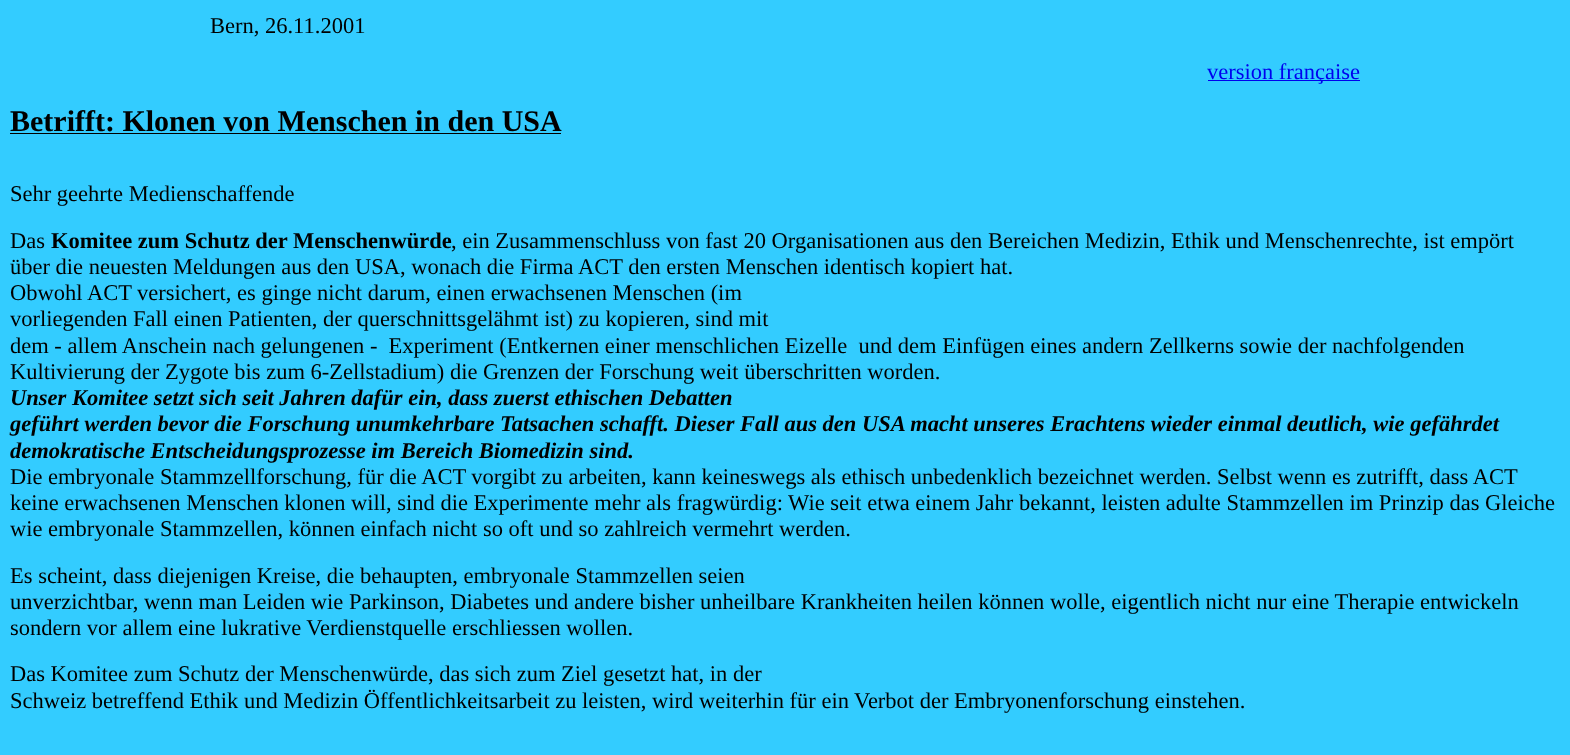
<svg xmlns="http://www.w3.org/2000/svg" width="1570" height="755">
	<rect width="100%" height="100%" fill="#33CCFF" />
	<text x="210" y="33" font-family="Liberation Serif" font-size="22.5" fill="#000000">Bern, 26.11.2001</text>
	<rect x="1208" y="80" width="152" height="1" fill="#0000EE" />
	<text x="1207" y="79" font-family="Liberation Serif" font-size="22.5" fill="#0000EE">version française</text>
	<text x="10" y="131" font-family="Liberation Serif" font-size="30" font-weight="700" fill="#000000">Betrifft: Klonen von Menschen in den USA</text>
	<rect x="10" y="133" width="551" height="1" fill="#000000" />
	<g font-family="Liberation Serif" font-size="22.5" fill="#000000">
		<text x="10" y="201">Sehr geehrte Medienschaffende</text>
		<text x="10" y="248">Das</text>
	</g>
	<text x="51" y="248" font-family="Liberation Serif" font-size="22.5" font-weight="700" fill="#000000">Komitee zum Schutz der Menschenwürde</text>
	<g font-family="Liberation Serif" font-size="22.5" fill="#000000">
		<text x="451" y="248">, ein Zusammenschluss von fast 20 Organisationen aus den Bereichen Medizin, Ethik und Menschenrechte, ist empört</text>
		<text x="10" y="274">über die neuesten Meldungen aus den USA, wonach die Firma ACT den ersten Menschen identisch kopiert hat.</text>
		<text x="10" y="300">Obwohl ACT versichert, es ginge nicht darum, einen erwachsenen Menschen (im</text>
		<text x="10" y="326">vorliegenden Fall einen Patienten, der querschnittsgelähmt ist) zu kopieren, sind mit</text>
		<text x="10" y="353" xml:space="preserve">dem - allem Anschein nach gelungenen -  Experiment (Entkernen einer menschlichen Eizelle  und dem Einfügen eines andern Zellkerns sowie der nachfolgenden</text>
		<text x="10" y="379">Kultivierung der Zygote bis zum 6-Zellstadium) die Grenzen der Forschung weit überschritten worden.</text>
	</g>
	<g font-family="Liberation Serif" font-size="22.5" font-weight="700" font-style="italic" fill="#000000">
		<text x="10" y="405">Unser Komitee setzt sich seit Jahren dafür ein, dass zuerst ethischen Debatten</text>
		<text x="10" y="431">geführt werden bevor die Forschung unumkehrbare Tatsachen schafft. Dieser Fall aus den USA macht unseres Erachtens wieder einmal deutlich, wie gefährdet</text>
		<text x="10" y="458">demokratische Entscheidungsprozesse im Bereich Biomedizin sind.</text>
	</g>
	<g font-family="Liberation Serif" font-size="22.5" fill="#000000">
		<text x="10" y="484">Die embryonale Stammzellforschung, für die ACT vorgibt zu arbeiten, kann keineswegs als ethisch unbedenklich bezeichnet werden. Selbst wenn es zutrifft, dass ACT</text>
		<text x="10" y="510">keine erwachsenen Menschen klonen will, sind die Experimente mehr als fragwürdig: Wie seit etwa einem Jahr bekannt, leisten adulte Stammzellen im Prinzip das Gleiche</text>
		<text x="10" y="536">wie embryonale Stammzellen, können einfach nicht so oft und so zahlreich vermehrt werden.</text>
		<text x="10" y="583">Es scheint, dass diejenigen Kreise, die behaupten, embryonale Stammzellen seien</text>
		<text x="10" y="609">unverzichtbar, wenn man Leiden wie Parkinson, Diabetes und andere bisher unheilbare Krankheiten heilen können wolle, eigentlich nicht nur eine Therapie entwickeln</text>
		<text x="10" y="635">sondern vor allem eine lukrative Verdienstquelle erschliessen wollen.</text>
		<text x="10" y="681">Das Komitee zum Schutz der Menschenwürde, das sich zum Ziel gesetzt hat, in der</text>
		<text x="10" y="708">Schweiz betreffend Ethik und Medizin Öffentlichkeitsarbeit zu leisten, wird weiterhin für ein Verbot der Embryonenforschung einstehen.</text>
	</g>
</svg>
